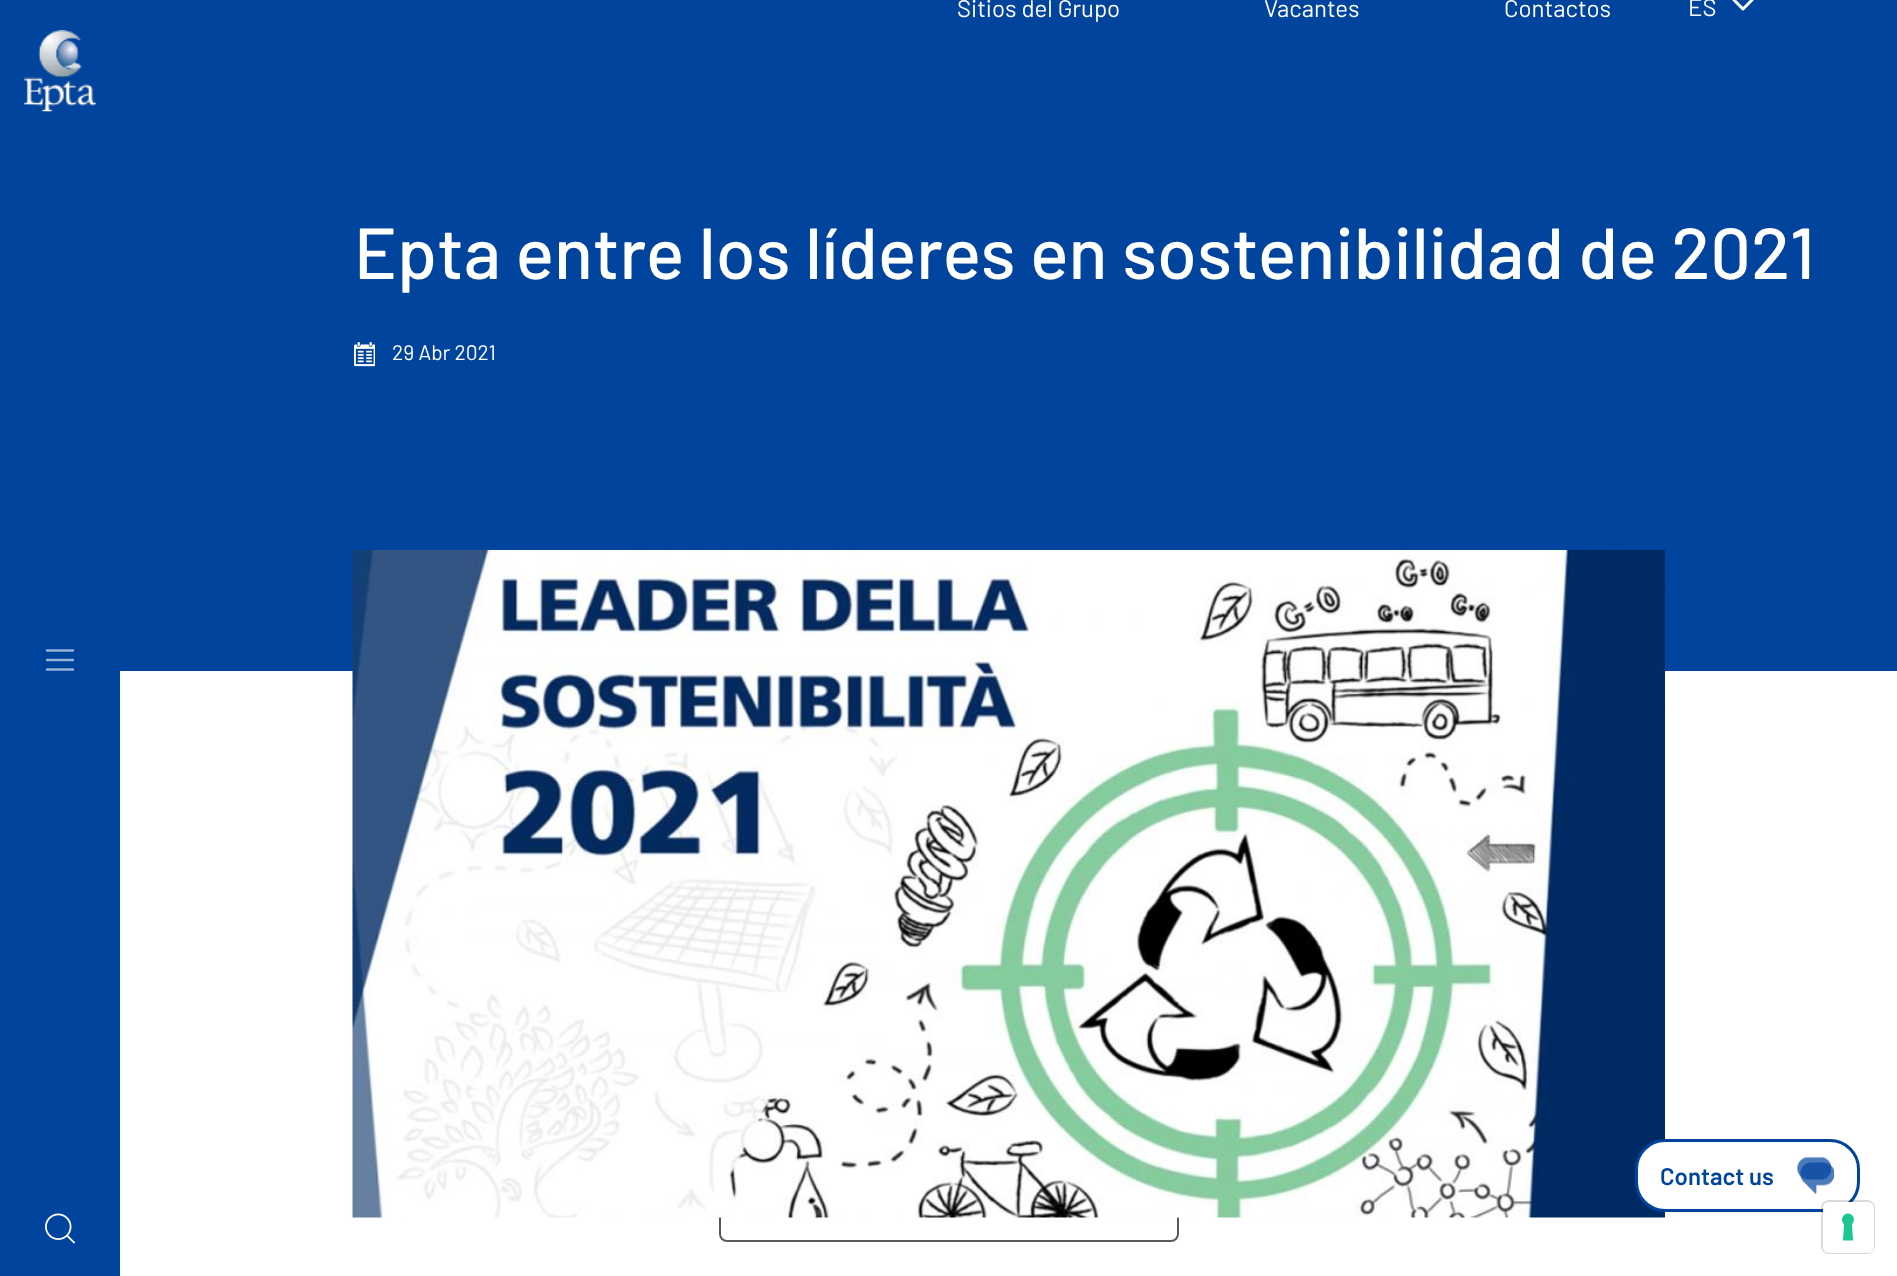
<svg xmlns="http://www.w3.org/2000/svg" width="1897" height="1276">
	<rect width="100%" height="100%" fill="#FFFFFF" />
	<rect x="0" y="0" width="120" height="1276" fill="#00449E" />
	<image x="24" y="30" width="72" height="82" href="assets/img1.png" />
	<path d="M47 650.5H73M47 660H73M47 669.5H73" fill="none" stroke="#99B4D8" stroke-width="2.4" stroke-linecap="round" />
	<image x="45" y="1213" width="30" height="31" href="assets/img2.png" />
	<rect x="120" y="0" width="1777" height="671" fill="#00449E" />
	<g font-family="Barlow" font-size="24" fill="#FFFFFF">
		<text x="957" y="17">Sitios del Grupo</text>
		<text x="1264" y="17">Vacantes</text>
		<text x="1504" y="17">Contactos</text>
		<text x="1688" y="16">ES</text>
	</g>
	<path d="M1734 0L1743 9L1752 0" fill="none" stroke="#FFFFFF" stroke-width="3" stroke-linecap="round" stroke-linejoin="round" />
	<text x="354" y="279" font-family="Barlow" font-size="72" font-weight="500" fill="#FFFFFF">Epta entre los líderes en sostenibilidad de 2021</text>
	<image x="354" y="342" width="21" height="25" href="assets/img3.png" />
	<text x="392" y="360" font-family="Barlow" font-size="21" fill="#FFFFFF">29 Abr 2021</text>
	<rect x="720" y="1192" width="458" height="49" rx="7" fill="none" stroke="#595959" stroke-width="2" />
	<image x="352" y="550" width="1313" height="668" href="assets/img4.png" />
	<rect x="1636.5" y="1140.5" width="222" height="70" rx="28.5" fill="#FFFFFF" stroke="#00449E" stroke-width="3" />
	<text x="1660" y="1185" font-family="Barlow" font-size="24" font-weight="600" fill="#00449E">Contact us</text>
	<image x="1797" y="1156" width="38" height="38" href="assets/img5.png" />
	<rect x="1822" y="1201" width="52" height="52" rx="7" fill="none" stroke="#000000" stroke-opacity="0.15" stroke-width="2" />
	<rect x="1823" y="1202" width="51" height="51" rx="6" fill="#FFFFFF" />
	<path d="M1848 1213.5C1853.5 1213.5 1856 1220.5 1852 1224L1853 1240.5H1843L1844 1224C1840 1220.5 1842.5 1213.5 1848 1213.5Z" fill="#1CC691" fill-rule="evenodd" />
</svg>
